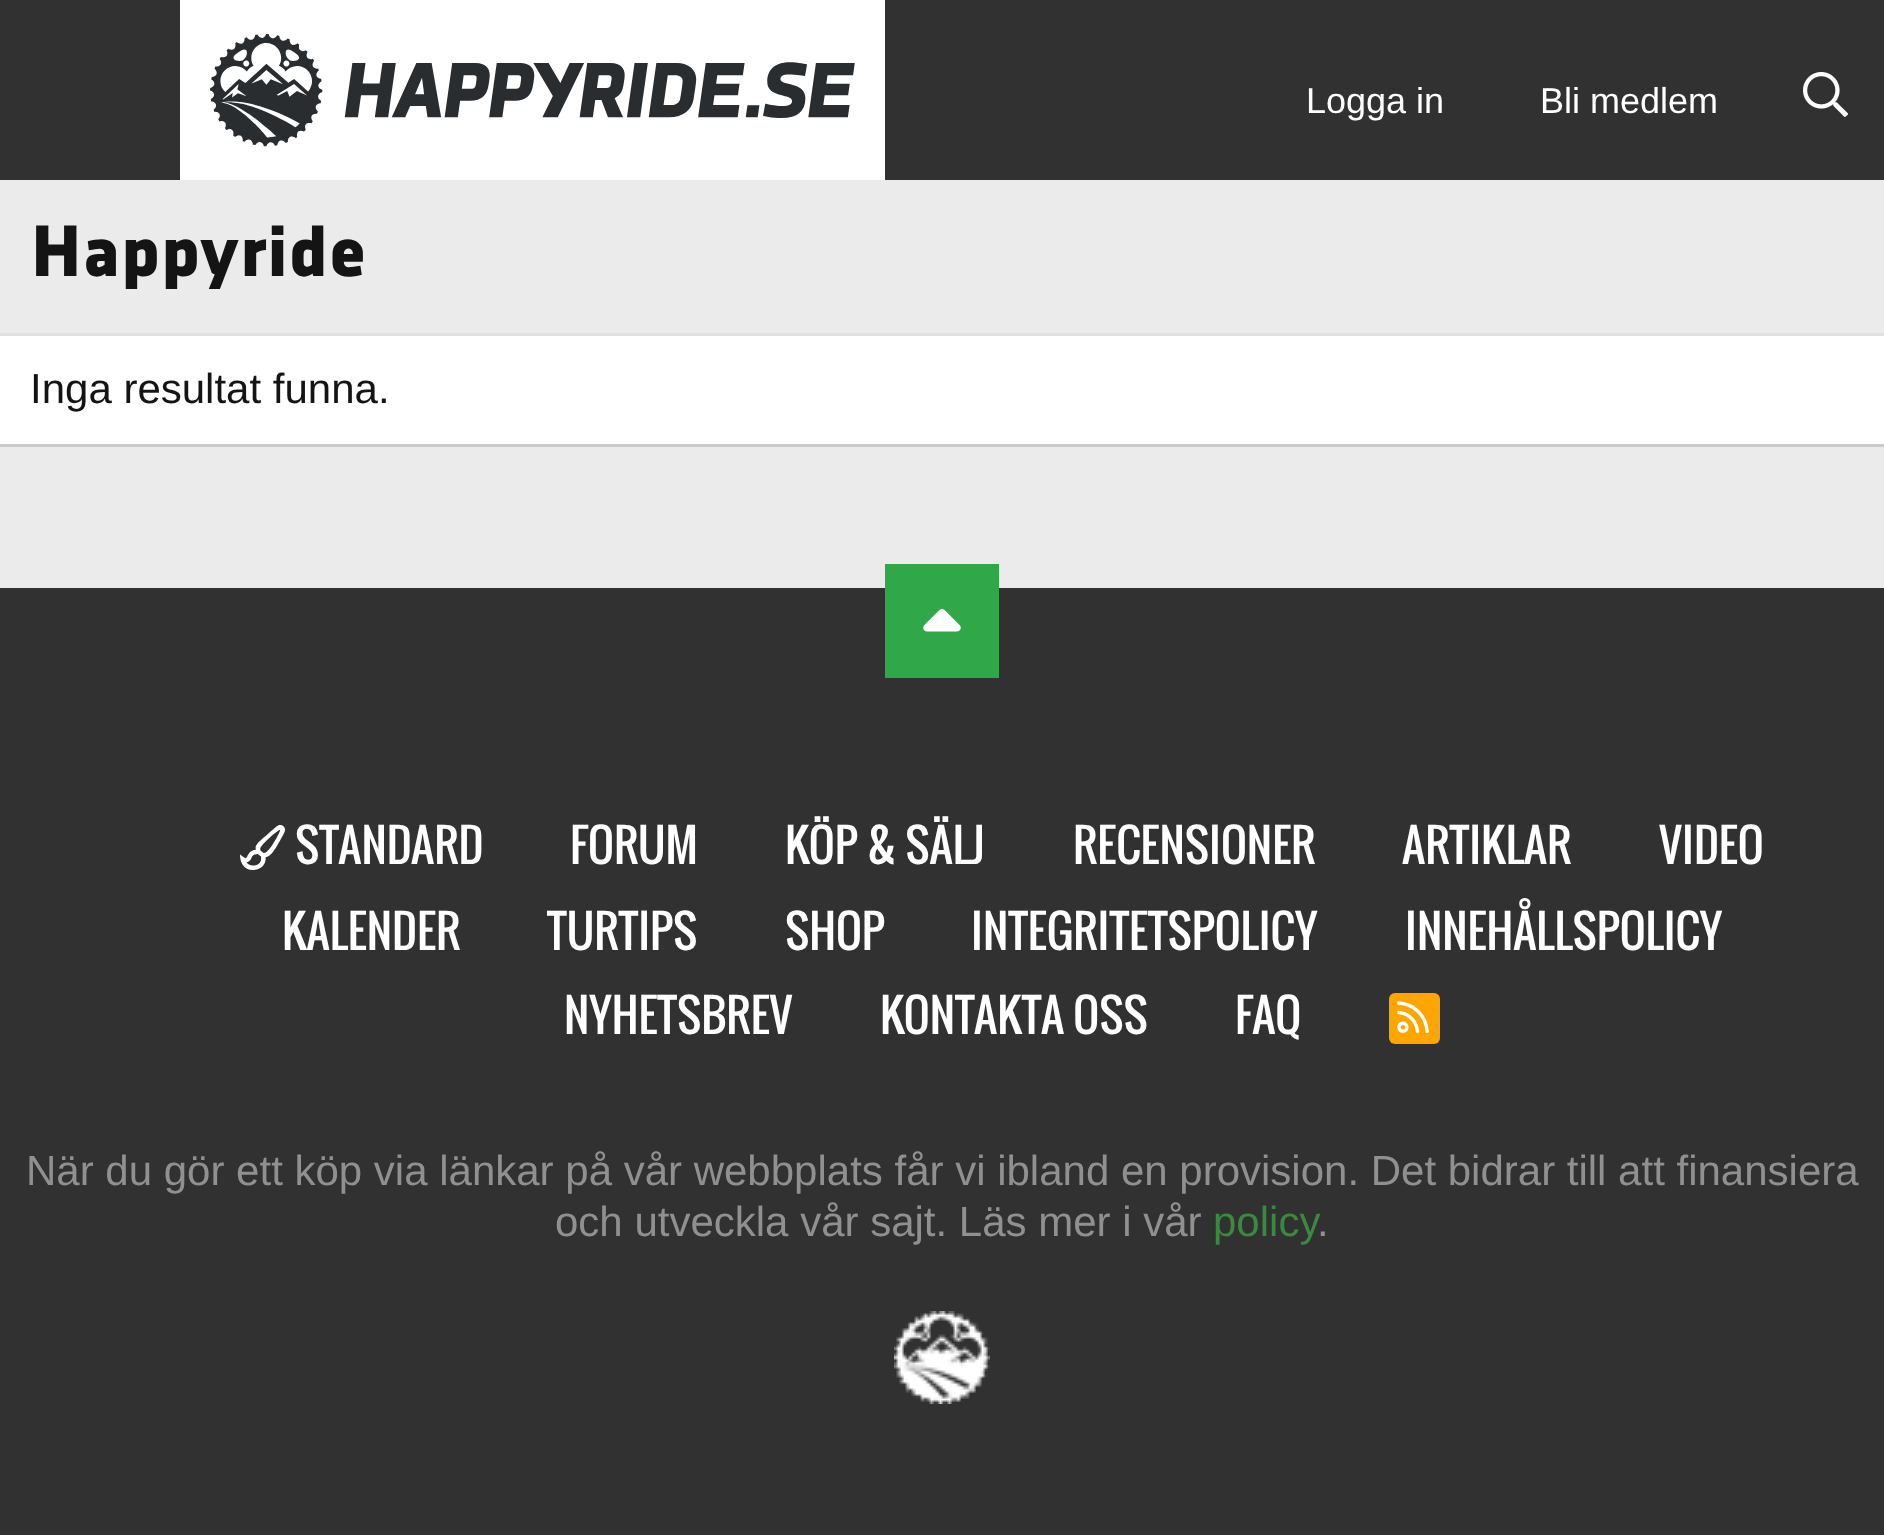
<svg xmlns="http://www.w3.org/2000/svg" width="1884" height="1535">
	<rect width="100%" height="100%" fill="#EBEBEB" />
	<rect x="0" y="0" width="1884" height="180" fill="#313131" />
	<rect x="180" y="0" width="705" height="180" fill="#FFFFFF" />
	<image x="210" y="34" width="645" height="113" href="assets/img1.png" />
	<g font-family="Liberation Sans" font-size="36" fill="#FFFFFF">
		<text x="1306" y="113">Logga in</text>
		<text x="1540" y="113">Bli medlem</text>
	</g>
	<image x="1803" y="72" width="45" height="45" href="assets/img2.png" />
	<text x="30" y="276" font-family="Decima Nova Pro" font-size="72" font-weight="900" fill="#141414">Happyride</text>
	<rect x="0" y="336" width="1884" height="108" fill="#FFFFFF" />
	<rect x="0" y="333" width="1884" height="3" fill="#E0E0E0" />
	<rect x="0" y="444" width="1884" height="3" fill="#CCCCCC" />
	<text x="30" y="403" font-family="Liberation Sans" font-size="42" fill="#141414">Inga resultat funna.</text>
	<rect x="0" y="588" width="1884" height="947" fill="#313131" />
	<rect x="885" y="564" width="114" height="114" fill="#30A749" />
	<image x="923" y="609" width="38" height="23" href="assets/img3.png" />
	<image x="240" y="825" width="45" height="45" href="assets/img4.png" />
	<g font-family="Oswald" font-size="45" fill="#FFFFFF">
		<text x="295" y="864">STANDARD</text>
		<text x="570" y="864">FORUM</text>
		<text x="785" y="864">KÖP &amp; SÄLJ</text>
		<text x="1073" y="864">RECENSIONER</text>
		<text x="1402" y="864">ARTIKLAR</text>
		<text x="1659" y="864">VIDEO</text>
		<text x="282" y="950">KALENDER</text>
		<text x="547" y="950">TURTIPS</text>
		<text x="785" y="950">SHOP</text>
		<text x="971" y="950">INTEGRITETSPOLICY</text>
		<text x="1405" y="950">INNEHÅLLSPOLICY</text>
		<text x="564" y="1034">NYHETSBREV</text>
		<text x="880" y="1034">KONTAKTA OSS</text>
		<text x="1235" y="1034">FAQ</text>
	</g>
	<rect x="1389" y="993" width="51" height="51" rx="6" fill="#FFA500" />
	<image x="1397" y="1001" width="32" height="32" href="assets/img5.png" />
	<g font-family="Liberation Sans" font-size="42" fill="#909090">
		<text x="26" y="1185">När du gör ett köp via länkar på vår webbplats får vi ibland en provision. Det bidrar till att finansiera</text>
		<text x="555" y="1236">och utveckla vår sajt. Läs mer i vår</text>
	</g>
	<text x="1213" y="1236" font-family="Liberation Sans" font-size="42" fill="#398A3D">policy</text>
	<text x="1317" y="1236" font-family="Liberation Sans" font-size="42" fill="#909090">.</text>
	<image x="894" y="1311" width="96" height="93" href="assets/img6.png" />
</svg>
